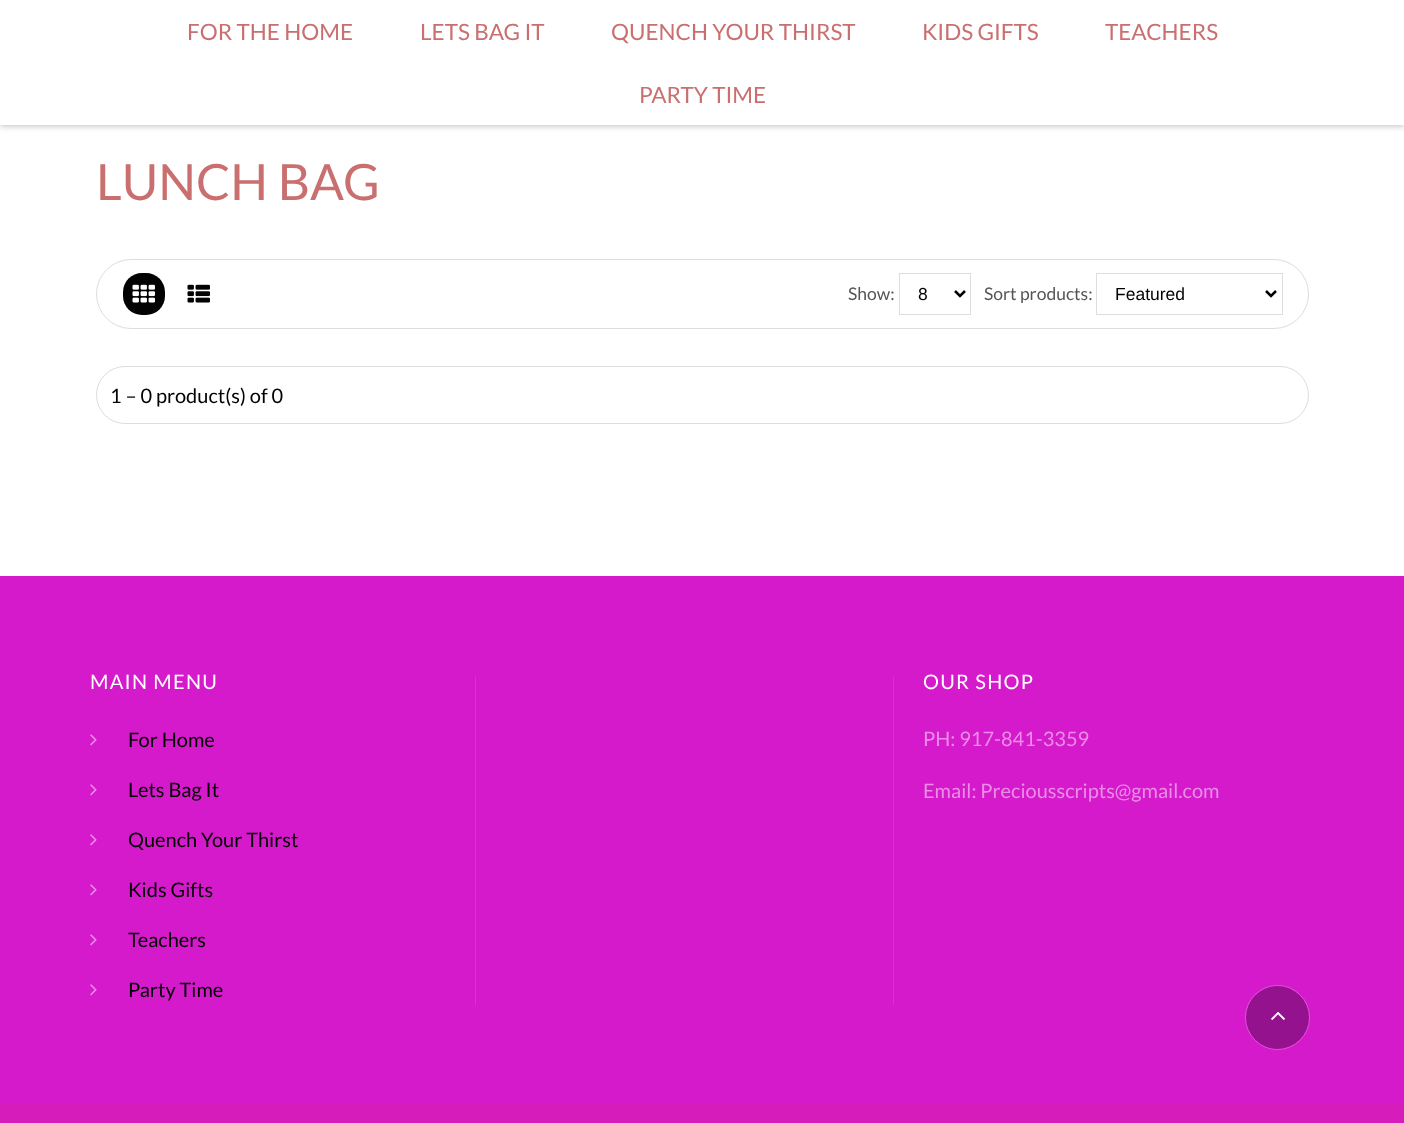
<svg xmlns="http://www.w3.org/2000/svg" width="1404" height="1123">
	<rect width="100%" height="100%" fill="#FFFFFF" />
	<rect x="0" y="1" width="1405" height="125" fill="#000000" fill-opacity="0.25" filter="blur(3px)" />
	<rect x="0" y="0" width="1404" height="125" fill="#FFFFFF" />
	<g font-family="Lato" font-size="22.5" fill="#CA6F6F">
		<text x="187" y="40">FOR THE HOME</text>
		<text x="420" y="40">LETS BAG IT</text>
		<text x="611" y="40">QUENCH YOUR THIRST</text>
		<text x="922" y="40">KIDS GIFTS</text>
		<text x="1105" y="40">TEACHERS</text>
		<text x="639" y="103">PARTY TIME</text>
	</g>
	<text x="96" y="200" font-family="Lato" font-size="50" fill="#CA6F6F">LUNCH BAG</text>
	<rect x="96.5" y="259.5" width="1212" height="69" rx="34.5" fill="none" stroke="#DDDDDD" />
	<rect x="123" y="273" width="42" height="42" rx="19" fill="#020202" />
	<image x="132" y="284" width="23" height="19" href="assets/img1.png" />
	<image x="187" y="284" width="23" height="19" href="assets/img2.png" />
	<text x="848" y="300" font-family="Lato" font-size="17.5" fill="#555555">Show:</text>
	<rect x="899.5" y="273.5" width="71" height="41" fill="none" stroke="#DDDDDD" />
	<path d="M955 291L960 296L965 291" fill="none" stroke="#020202" stroke-width="2.5" />
	<text x="918" y="300" font-family="Liberation Sans" font-size="17.5" fill="#020202">8</text>
	<text x="984" y="300" font-family="Lato" font-size="17.5" fill="#555555">Sort products:</text>
	<rect x="1096.5" y="273.5" width="186" height="41" fill="none" stroke="#DDDDDD" />
	<path d="M1266 291L1271 296L1276 291" fill="none" stroke="#020202" stroke-width="2.5" />
	<text x="1115" y="300" font-family="Liberation Sans" font-size="17.5" fill="#020202">Featured</text>
	<rect x="96.5" y="366.5" width="1212" height="57" rx="28.5" fill="none" stroke="#DDDDDD" />
	<text x="110" y="403" font-family="Lato" font-size="20" fill="#020202">1 – 0 product(s) of 0</text>
	<rect x="0" y="576" width="1404" height="527" fill="#D51ACC" />
	<text x="90" y="689" font-family="Lato" font-size="20" letter-spacing="1.25" fill="#FFFFFF">MAIN MENU</text>
	<image x="90" y="734" width="7" height="12" href="assets/img3.png" />
	<text x="128" y="747" font-family="Lato" font-size="20" fill="#020202">For Home</text>
	<image x="90" y="784" width="7" height="12" href="assets/img3.png" />
	<text x="128" y="797" font-family="Lato" font-size="20" fill="#020202">Lets Bag It</text>
	<image x="90" y="834" width="7" height="12" href="assets/img3.png" />
	<text x="128" y="847" font-family="Lato" font-size="20" fill="#020202">Quench Your Thirst</text>
	<image x="90" y="884" width="7" height="12" href="assets/img3.png" />
	<text x="128" y="897" font-family="Lato" font-size="20" fill="#020202">Kids Gifts</text>
	<image x="90" y="934" width="7" height="12" href="assets/img3.png" />
	<text x="128" y="947" font-family="Lato" font-size="20" fill="#020202">Teachers</text>
	<image x="90" y="984" width="7" height="12" href="assets/img3.png" />
	<text x="128" y="997" font-family="Lato" font-size="20" fill="#020202">Party Time</text>
	<rect x="475" y="676" width="1" height="329" fill="#D931D1" />
	<rect x="893" y="676" width="1" height="329" fill="#D931D1" />
	<text x="923" y="689" font-family="Lato" font-size="20" letter-spacing="1.25" fill="#FFFFFF">OUR SHOP</text>
	<g font-family="Lato" font-size="20" fill="#EA8DE6">
		<text x="923" y="746">PH: 917-841-3359</text>
		<text x="923" y="798">Email: Preciousscripts@gmail.com</text>
	</g>
	<rect x="0" y="1103" width="1404" height="20" fill="#D61CBB" />
	<circle cx="1277.5" cy="1017.5" r="32" fill="none" stroke="#E053D9" />
	<circle cx="1277.5" cy="1017.5" r="31.5" fill="#000000" fill-opacity="0.3" />
	<image x="1271" y="1011" width="14" height="9" href="assets/img4.png" />
</svg>
